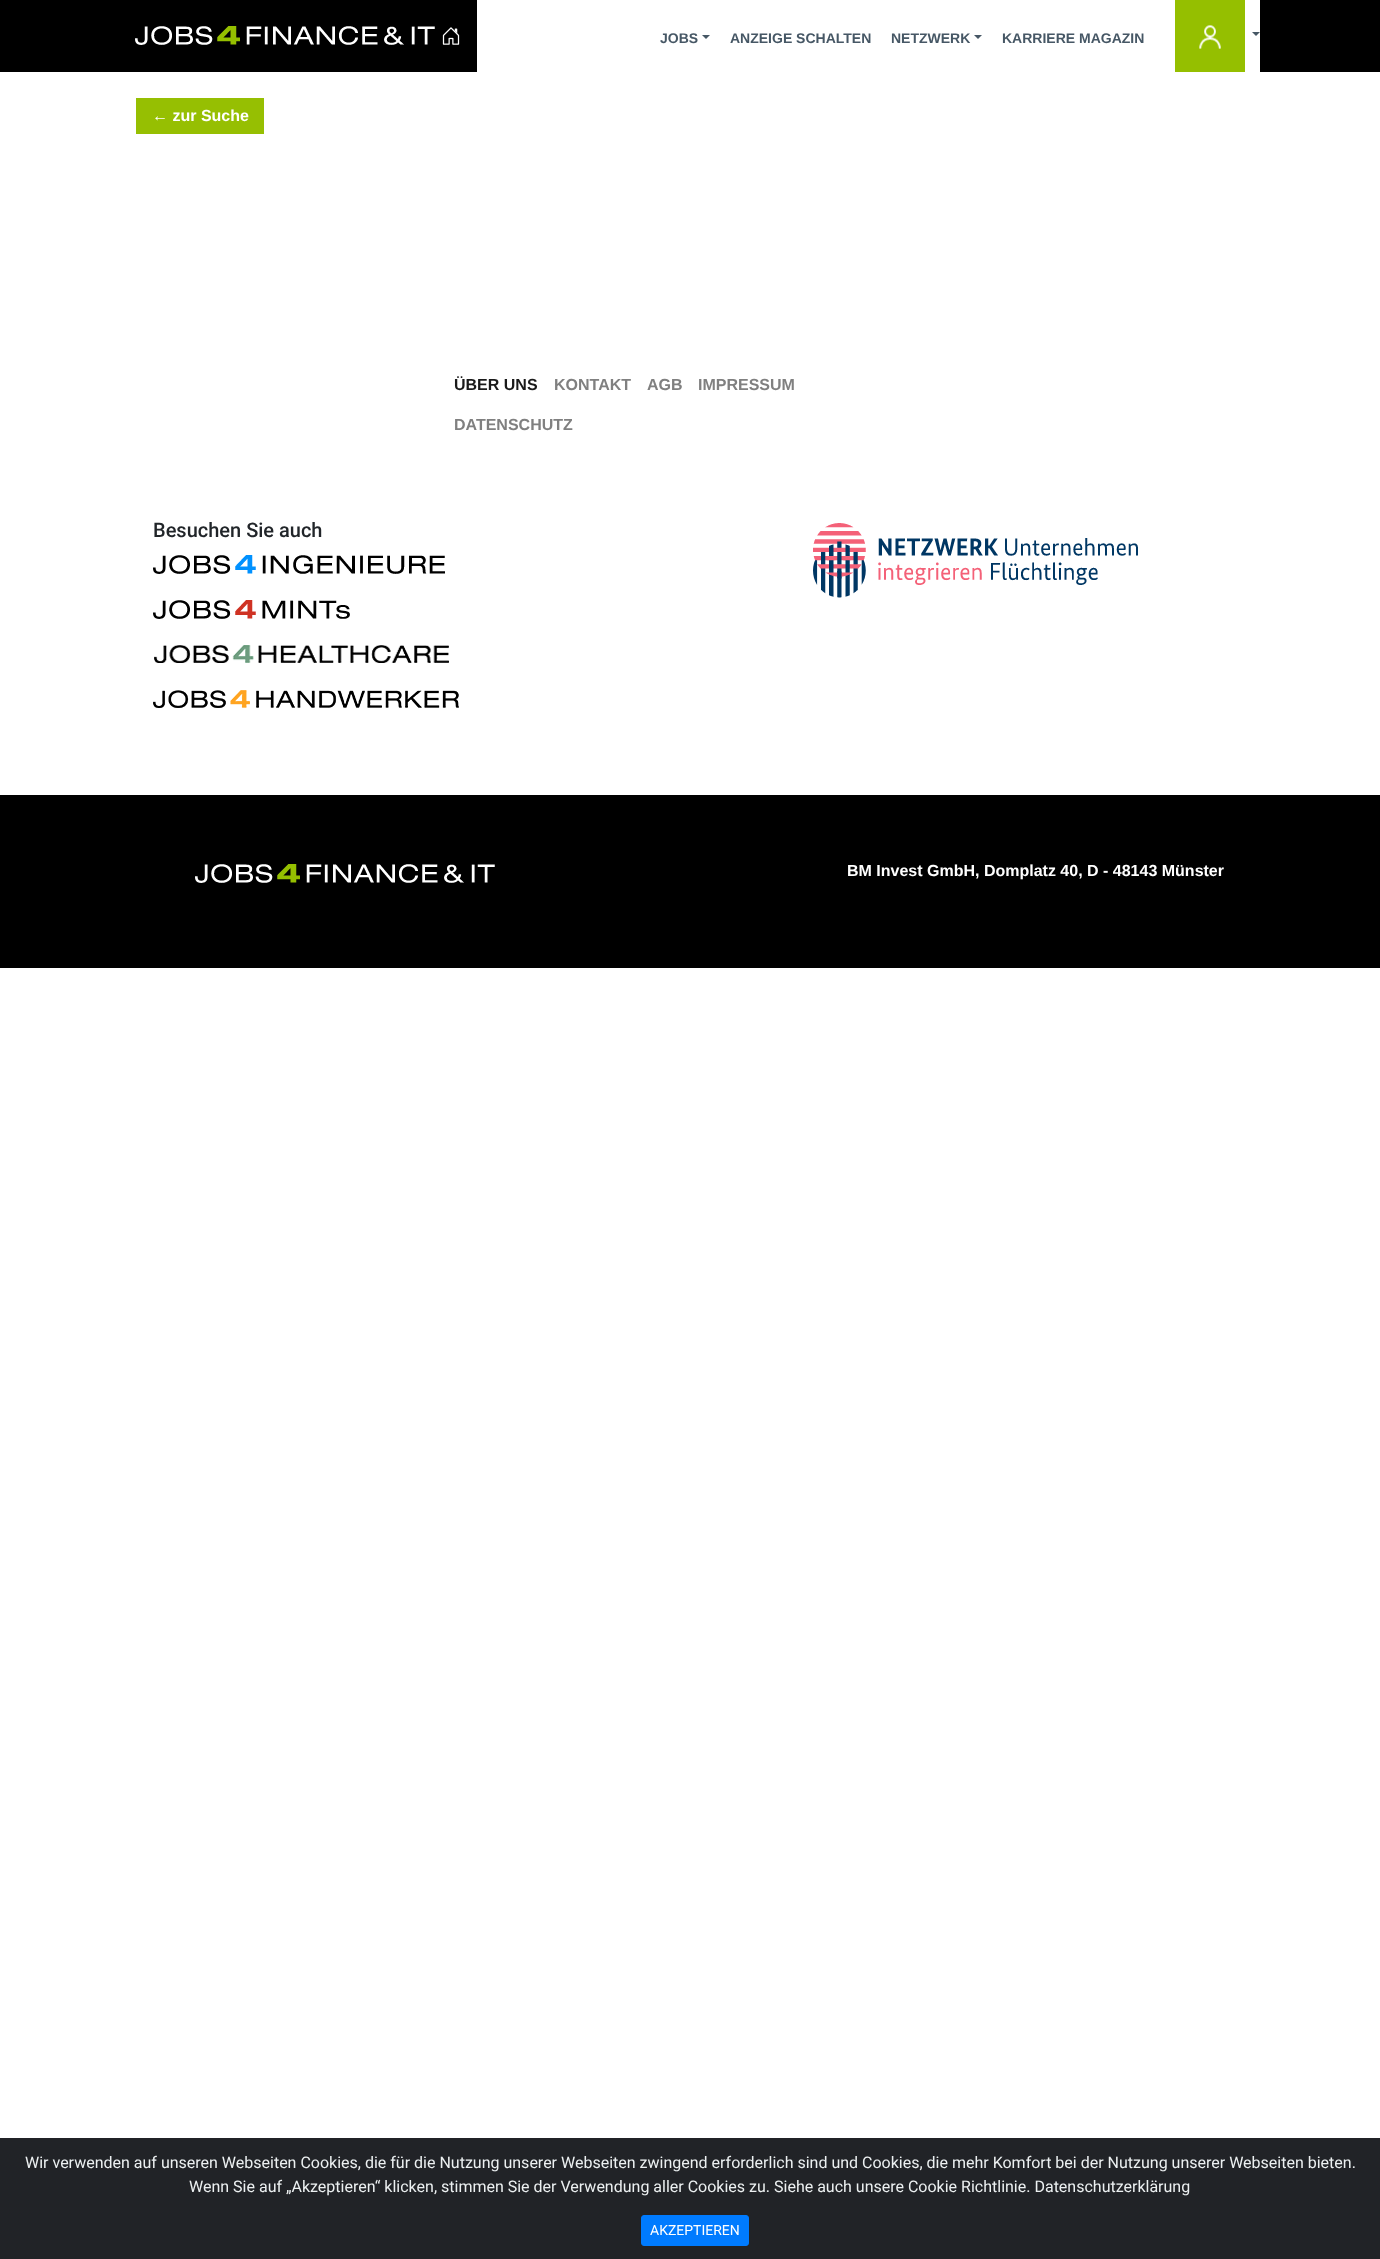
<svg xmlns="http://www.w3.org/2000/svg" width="1380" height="2259">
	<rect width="100%" height="100%" fill="#FFFFFF" />
	<rect x="0" y="0" width="1380" height="72" fill="#000000" />
	<image x="135" y="26" width="300" height="19" href="assets/img1.png" />
	<image x="442" y="27" width="18" height="18" href="assets/img2.png" />
	<rect x="477" y="0" width="783" height="72" fill="#FFFFFF" />
	<text x="660" y="43" font-family="Liberation Sans" font-size="14" font-weight="700" fill="#465765">JOBS</text>
	<path d="M702 35H710L706 39Z" fill="#465765" />
	<g font-family="Liberation Sans" font-size="14" font-weight="700" fill="#465765">
		<text x="730" y="43">ANZEIGE SCHALTEN</text>
		<text x="891" y="43">NETZWERK</text>
	</g>
	<path d="M974 35H982L978 39Z" fill="#465765" />
	<text x="1002" y="43" font-family="Liberation Sans" font-size="14" font-weight="700" fill="#465765">KARRIERE MAGAZIN</text>
	<image x="1175" y="0" width="70" height="72" href="assets/img3.png" />
	<path d="M1252 32H1260L1256 36Z" fill="#465765" />
	<rect x="136" y="98" width="128" height="36" fill="#96BF02" />
	<text x="152" y="121" font-family="Liberation Sans" font-size="16" font-weight="700" fill="#FFFFFF">← zur Suche</text>
	<text x="454" y="390" font-family="Liberation Sans" font-size="16" font-weight="700" fill="#1A1A1A">ÜBER UNS</text>
	<g font-family="Liberation Sans" font-size="16" font-weight="700" fill="#808080">
		<text x="554" y="390">KONTAKT</text>
		<text x="647" y="390">AGB</text>
		<text x="698" y="390">IMPRESSUM</text>
		<text x="454" y="430">DATENSCHUTZ</text>
	</g>
	<text x="153" y="537" font-family="Roboto" font-size="20" font-weight="500" fill="#212529">Besuchen Sie auch</text>
	<image x="153" y="555" width="292" height="19" href="assets/img4.png" />
	<image x="153" y="600" width="197" height="19" href="assets/img5.png" />
	<image x="154" y="645" width="295" height="18" href="assets/img6.png" />
	<image x="153" y="690" width="306" height="18" href="assets/img7.png" />
	<image x="813" y="523" width="325" height="75" href="assets/img8.png" />
	<rect x="0" y="795" width="1380" height="173" fill="#000000" />
	<image x="195" y="864" width="300" height="19" href="assets/img1.png" />
	<text x="847" y="876" font-family="Liberation Sans" font-size="16" font-weight="700" fill="#FFFFFF">BM Invest GmbH, Domplatz 40, D - 48143 Münster</text>
	<rect x="0" y="2138" width="1380" height="121" fill="#212327" />
	<g font-family="Roboto" font-size="16" fill="#ECF0F1">
		<text x="25" y="2168">Wir verwenden auf unseren Webseiten Cookies, die für die Nutzung unserer Webseiten zwingend erforderlich sind und Cookies, die mehr Komfort bei der Nutzung unserer Webseiten bieten.</text>
		<text x="189" y="2192">Wenn Sie auf „Akzeptieren“ klicken, stimmen Sie der Verwendung aller Cookies zu. Siehe auch unsere Cookie Richtlinie. Datenschutzerklärung</text>
	</g>
	<rect x="641.5" y="2215.5" width="107" height="30" rx="2.5" fill="#007BFF" stroke="#007BFF" />
	<text x="650" y="2235" font-family="Roboto" font-size="14" fill="#FFFFFF">AKZEPTIEREN</text>
</svg>
